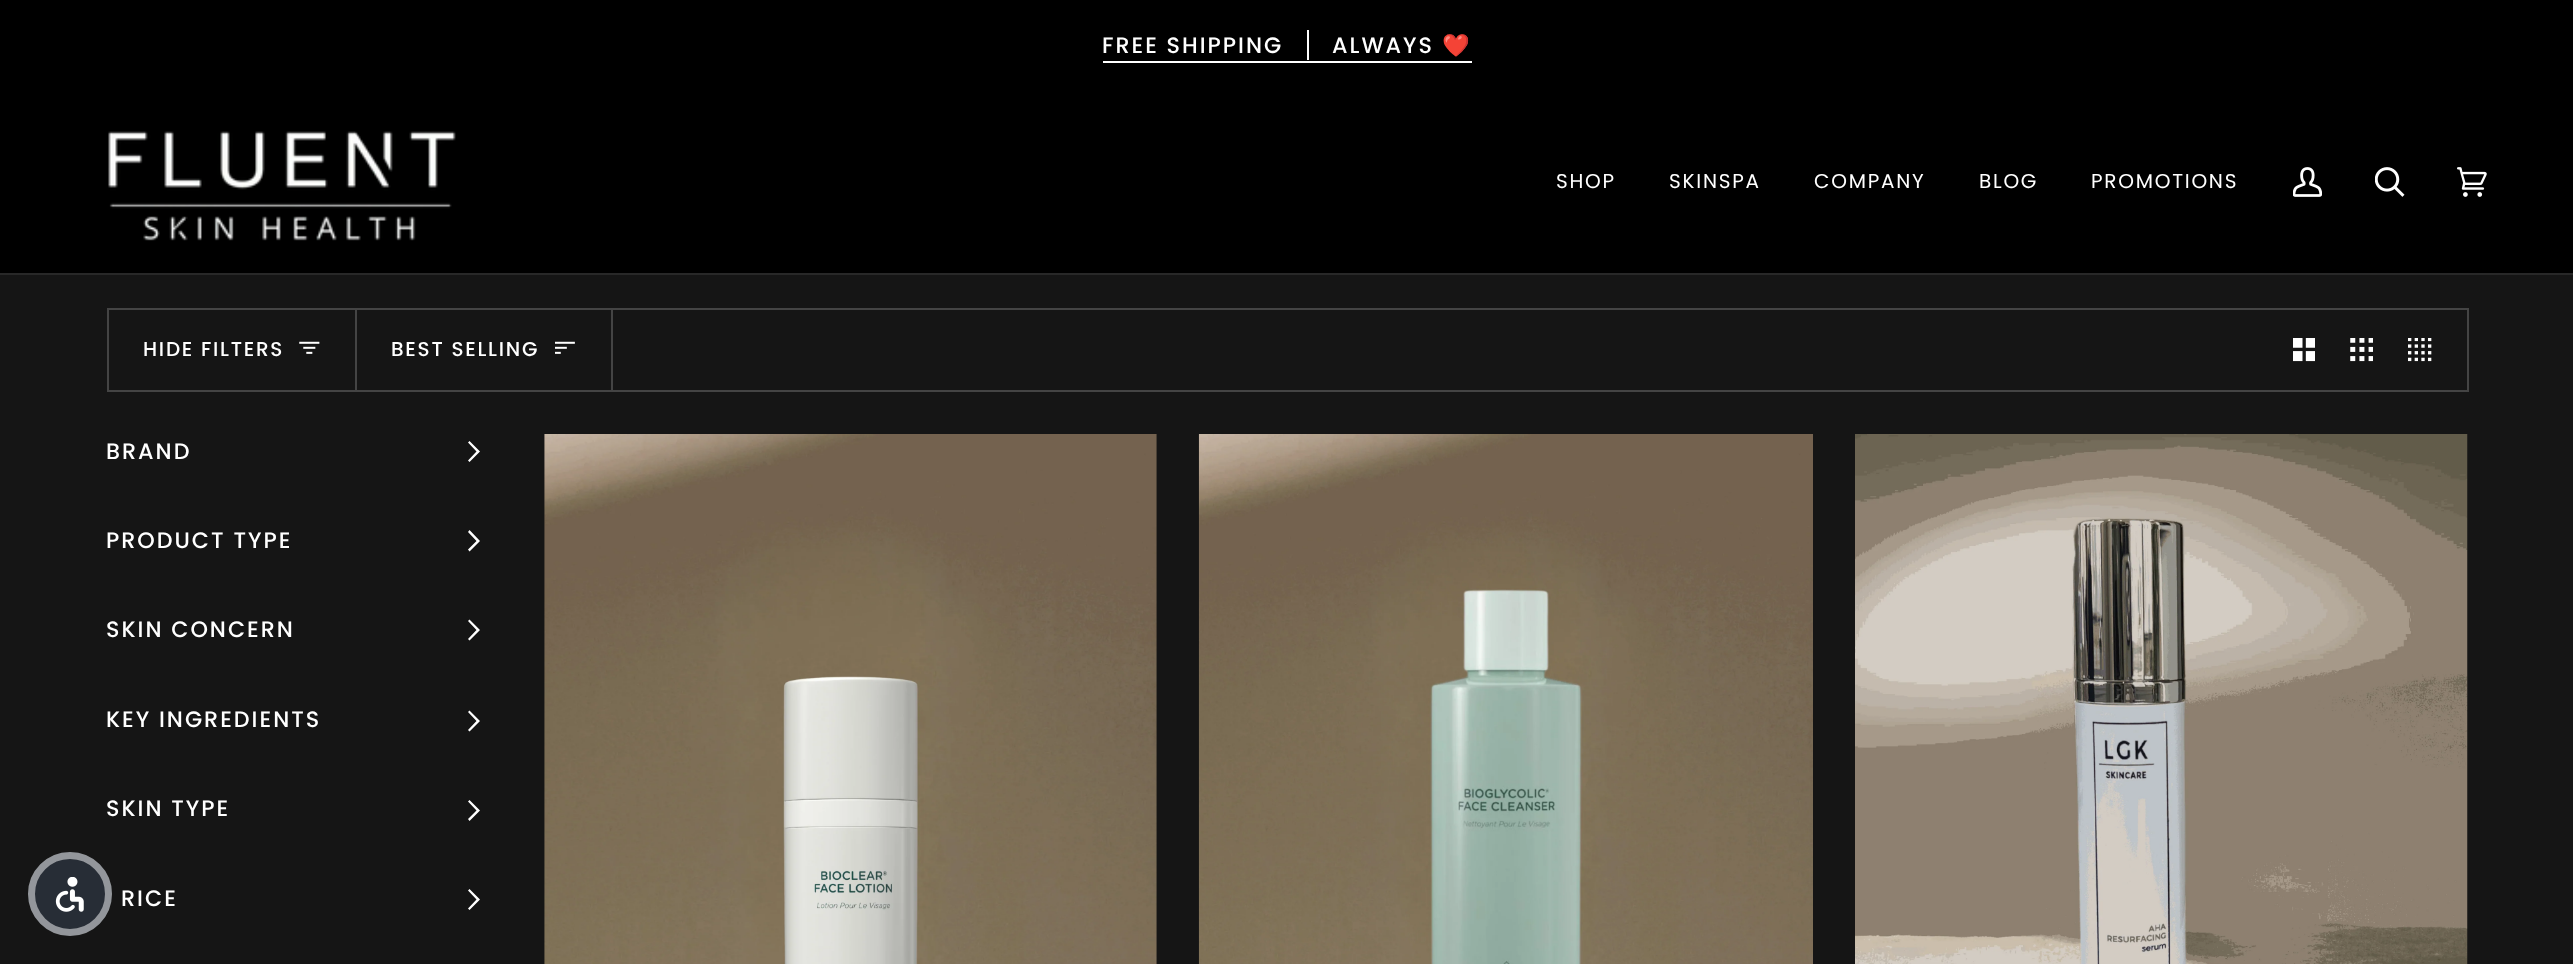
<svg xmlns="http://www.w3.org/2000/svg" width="2573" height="964">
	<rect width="100%" height="100%" fill="#151515" />
	<rect x="0" y="0" width="2573" height="273" fill="#000000" />
	<g font-family="Poppins" font-size="22.25" font-weight="500" letter-spacing="2" fill="#FFFFFF">
		<text x="1102" y="53">FREE SHIPPING</text>
		<text x="1332" y="53">ALWAYS</text>
	</g>
	<rect x="1307" y="30" width="2" height="30" fill="#FFFFFF" />
	<text x="1442" y="53" font-family="Noto Color Emoji" font-size="22.25" letter-spacing="2" fill="#FFFFFF">❤️</text>
	<rect x="1103" y="61" width="369" height="2" fill="#FFFFFF" />
	<rect x="0" y="273" width="2573" height="2" fill="#282828" />
	<image x="108" y="131" width="348" height="110" href="assets/img1.png" />
	<g font-family="Poppins" font-size="20" letter-spacing="1.75" fill="#FFFFFF">
		<text x="1556" y="188">SHOP</text>
		<text x="1669" y="188">SKINSPA</text>
		<text x="1814" y="188">COMPANY</text>
		<text x="1979" y="188">BLOG</text>
		<text x="2091" y="188">PROMOTIONS</text>
	</g>
	<image x="2293" y="167" width="29" height="30" href="assets/img2.png" />
	<image x="2375" y="167" width="30" height="30" href="assets/img3.png" />
	<image x="2457" y="167" width="30" height="30" href="assets/img4.png" />
	<circle cx="70" cy="894" r="42" fill="#272D36" />
	<circle cx="70" cy="894" r="38.5" fill="none" stroke="#FFFFFF" stroke-opacity="0.5" stroke-width="7" />
	<image x="55" y="877" width="29" height="35" href="assets/img5.png" />
	<rect x="108" y="309" width="2360" height="82" fill="none" stroke="#444444" stroke-width="2" />
	<rect x="355" y="310" width="2" height="80" fill="#444444" />
	<text x="143" y="356" font-family="Poppins" font-size="20" font-weight="500" letter-spacing="1.75" fill="#FFFFFF">HIDE FILTERS</text>
	<image x="299" y="341" width="21" height="13" href="assets/img6.png" />
	<rect x="611" y="310" width="2" height="80" fill="#444444" />
	<text x="391" y="356" font-family="Poppins" font-size="20" font-weight="500" letter-spacing="1.75" fill="#FFFFFF">BEST SELLING</text>
	<image x="555" y="341" width="20" height="13" href="assets/img7.png" />
	<image x="2293" y="338" width="22" height="24" href="assets/img8.png" />
	<image x="2350" y="338" width="23" height="24" href="assets/img9.png" />
	<image x="2408" y="338" width="24" height="24" href="assets/img10.png" />
	<text x="106" y="459" font-family="Poppins" font-size="22.25" font-weight="500" letter-spacing="2" fill="#FFFFFF">BRAND</text>
	<path d="M476.5 451.5L468 442.5L469.5 441L480 451.5L469.5 462L468 460.5Z" fill="#FFFFFF" fill-rule="evenodd" />
	<text x="106" y="548" font-family="Poppins" font-size="22.25" font-weight="500" letter-spacing="2" fill="#FFFFFF">PRODUCT TYPE</text>
	<path d="M476.5 541L468 532L469.5 530L480 541L469.5 551.5L468 549.5Z" fill="#FFFFFF" fill-rule="evenodd" />
	<text x="106" y="637" font-family="Poppins" font-size="22.25" font-weight="500" letter-spacing="2" fill="#FFFFFF">SKIN CONCERN</text>
	<path d="M476.5 630L468 621L469.5 619.5L480 630L469.5 640.5L468 639Z" fill="#FFFFFF" fill-rule="evenodd" />
	<text x="106" y="727" font-family="Poppins" font-size="22.25" font-weight="500" letter-spacing="2" fill="#FFFFFF">KEY INGREDIENTS</text>
	<path d="M476.5 721L468 712L469.5 710.5L480 721L469.5 731.5L468 730Z" fill="#FFFFFF" fill-rule="evenodd" />
	<text x="106" y="816" font-family="Poppins" font-size="22.25" font-weight="500" letter-spacing="2" fill="#FFFFFF">SKIN TYPE</text>
	<path d="M476.5 810.5L468 801.5L469.5 800L480 810.5L469.5 821L468 819Z" fill="#FFFFFF" fill-rule="evenodd" />
	<text x="121" y="906" font-family="Poppins" font-size="22.25" font-weight="500" letter-spacing="2" fill="#FFFFFF">RICE</text>
	<path d="M476.5 899.5L468 890.5L469.5 889L480 899.5L469.5 910L468 908.5Z" fill="#FFFFFF" fill-rule="evenodd" />
	<image x="544" y="434" width="613" height="530" href="assets/img11.png" />
	<image x="1198" y="434" width="615" height="530" href="assets/img12.png" />
	<image x="1855" y="434" width="613" height="530" href="assets/img13.png" />
</svg>
